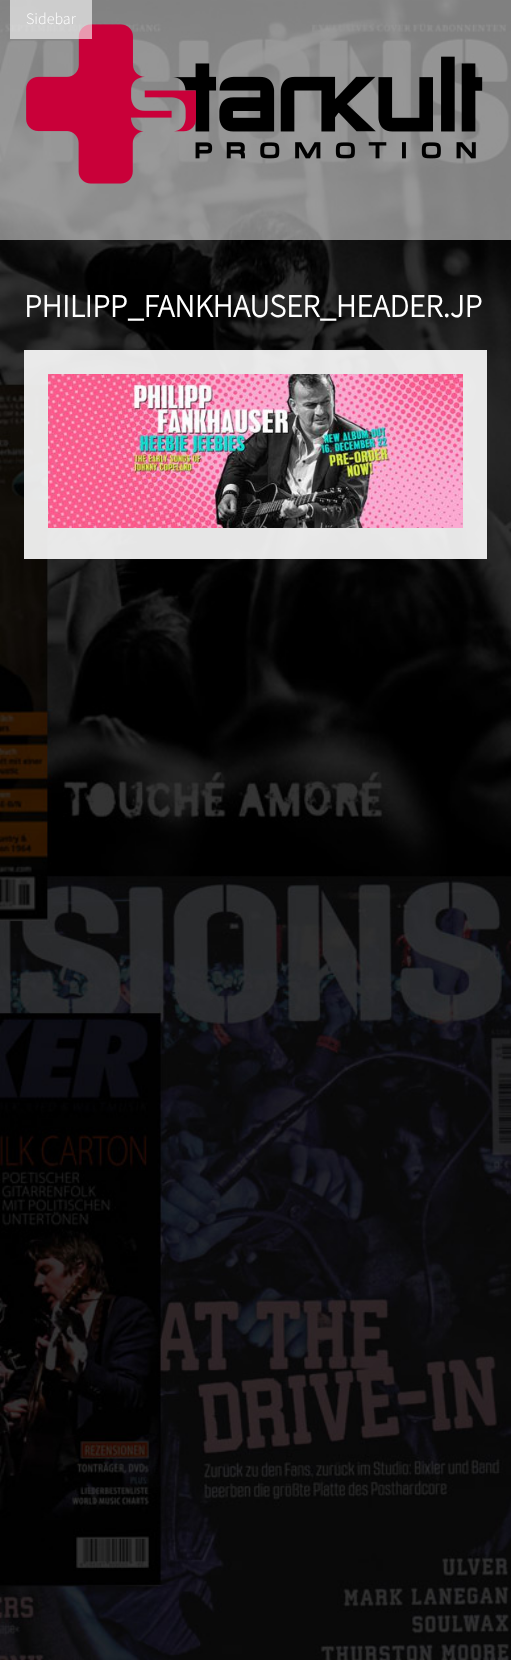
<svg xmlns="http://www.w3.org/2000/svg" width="511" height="1660">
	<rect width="100%" height="100%" fill="#FFFFFF" />
	<image x="0" y="0" width="511" height="1660" href="assets/img1.png" />
	<rect x="0" y="0" width="511" height="240" fill="#FFFFFF" fill-opacity="0.5" />
	<image x="26" y="24" width="457" height="160" href="assets/img2.png" />
	<rect x="10" y="0" width="82" height="39" fill="#FFFFFF" fill-opacity="0.6" />
	<text x="26" y="24" font-family="Source Sans Pro" font-size="16" font-weight="300" fill="#FFFFFF">Sidebar</text>
	<text x="24" y="317" font-family="Source Sans Pro" font-size="32" font-weight="700" fill="#FFFFFF">PHILIPP_FANKHAUSER_HEADER.JP</text>
	<rect x="24" y="350" width="463" height="209" fill="#FFFFFF" fill-opacity="0.9" />
	<image x="48" y="374" width="415" height="154" href="assets/img3.png" />
</svg>
